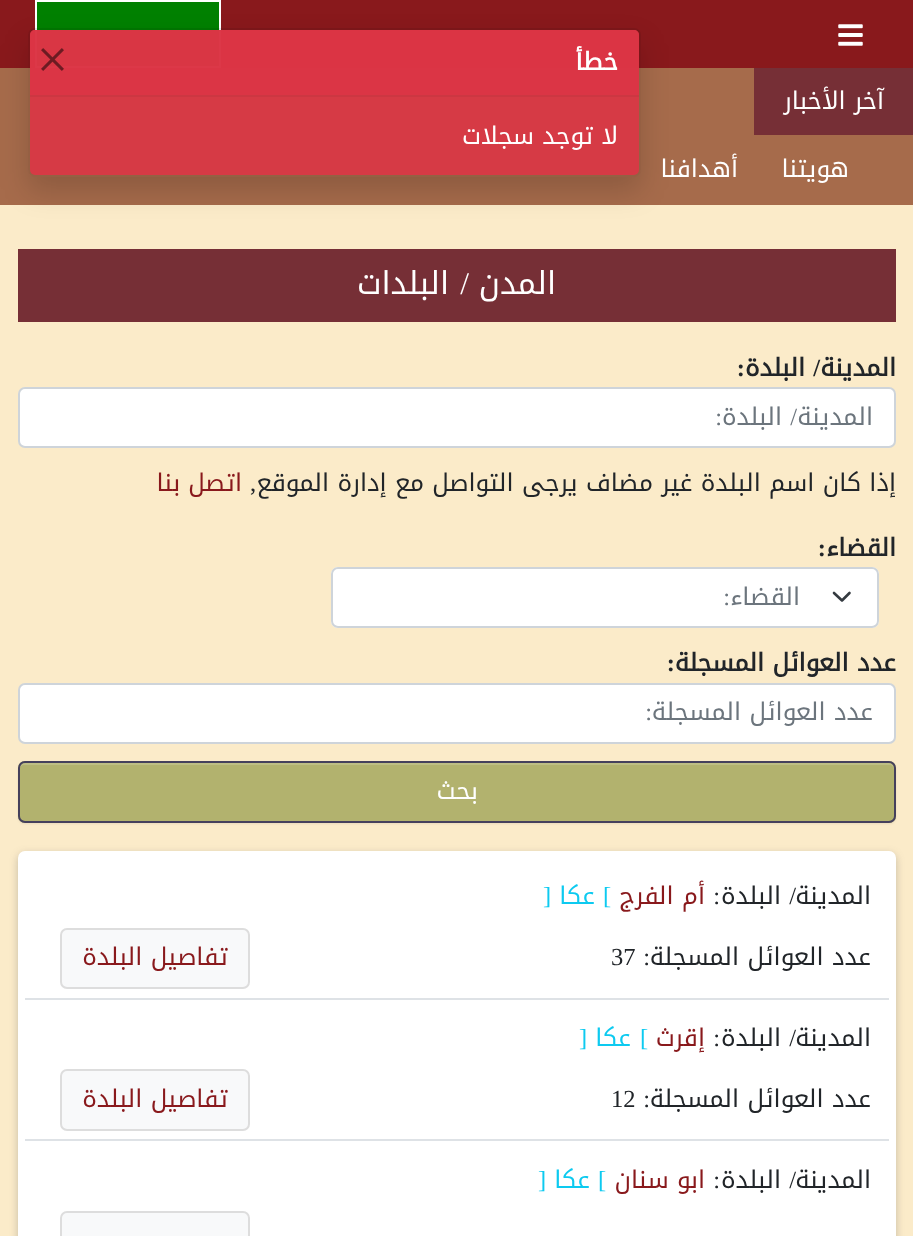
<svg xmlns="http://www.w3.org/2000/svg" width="913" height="1236">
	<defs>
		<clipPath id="clip1"><path d="M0 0H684V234H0ZM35 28H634C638 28 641 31 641 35V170C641 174 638 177 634 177H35C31 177 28 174 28 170V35C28 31 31 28 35 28Z" clip-rule="evenodd" /></clipPath>
	</defs>
	<rect width="100%" height="100%" fill="#FBEBC9" />
	<rect x="0" y="0" width="913" height="68" fill="#89191C" />
	<rect x="36" y="1" width="184" height="66" fill="#008000" stroke="#FFFFFF" stroke-width="2" />
	<rect x="0" y="68" width="754" height="67" fill="#A66B4B" />
	<rect x="0" y="135" width="913" height="70" fill="#A66B4B" />
	<g clip-path="url(#clip1)">
		<rect x="28" y="42" width="613" height="149" rx="7" fill="#000000" fill-opacity="0.15" filter="blur(14px)" />
	</g>
	<rect x="30" y="30" width="609" height="145" rx="5" fill="#DC3545" fill-opacity="0.9" />
	<rect x="29" y="29" width="611" height="147" rx="6" fill="none" stroke="#000000" stroke-opacity="0.1" stroke-width="2" />
	<path d="M35 30H634C637 30 639 32 639 35V95H30V35C30 32 32 30 35 30Z" fill="#DC3545" fill-opacity="0.85" />
	<rect x="30" y="95" width="609" height="2" fill="#CC3742" />
	<text x="618" y="70" font-family="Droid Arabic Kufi" font-size="24.5" font-weight="700" direction="rtl" fill="#FFFFFF">خطأ</text>
	<image x="41" y="48" width="23" height="23" href="assets/img1.png" />
	<text x="618" y="144" font-family="Droid Arabic Kufi" font-size="24.5" direction="rtl" fill="#FFFFFF">لا توجد سجلات</text>
	<image x="838" y="24" width="25" height="22" href="assets/img2.png" />
	<rect x="754" y="68" width="159" height="67" fill="#762F36" />
	<g font-family="Droid Arabic Kufi" font-size="24.5" direction="rtl" fill="#FFFFFF">
		<text x="884" y="109">آخر الأخبار</text>
		<text x="849" y="177">هويتنا</text>
		<text x="738" y="177">أهدافنا</text>
	</g>
	<rect x="18" y="249" width="878" height="73" fill="#762F36" />
	<text x="556" y="294" font-family="Droid Arabic Kufi" font-size="31.5" direction="rtl" fill="#FFFFFF">المدن</text>
	<text x="469" y="294" font-family="Liberation Serif" font-size="31.5" direction="rtl" fill="#FFFFFF">/</text>
	<text x="449" y="294" font-family="Droid Arabic Kufi" font-size="31.5" direction="rtl" fill="#FFFFFF">البلدات</text>
	<text x="896" y="376" font-family="Droid Arabic Kufi" font-size="24.5" font-weight="700" direction="rtl" fill="#212529">المدينة</text>
	<text x="820" y="376" font-family="Liberation Serif" font-size="24.5" font-weight="700" direction="rtl" fill="#212529">/</text>
	<text x="805" y="376" font-family="Droid Arabic Kufi" font-size="24.5" font-weight="700" direction="rtl" fill="#212529">البلدة</text>
	<text x="745" y="376" font-family="Liberation Serif" font-size="24.5" font-weight="700" direction="rtl" fill="#212529">:</text>
	<rect x="19" y="388" width="876" height="59" rx="6" fill="#FFFFFF" stroke="#CED4DA" stroke-width="2" />
	<text x="873" y="425" font-family="Droid Arabic Kufi" font-size="24.5" direction="rtl" fill="#6C757D">المدينة</text>
	<text x="797" y="425" font-family="Liberation Serif" font-size="24.5" direction="rtl" fill="#6C757D">/</text>
	<text x="782" y="425" font-family="Droid Arabic Kufi" font-size="24.5" direction="rtl" fill="#6C757D">البلدة</text>
	<text x="722" y="425" font-family="Liberation Serif" font-size="24.5" direction="rtl" fill="#6C757D">:</text>
	<text x="896" y="491" font-family="Droid Arabic Kufi" font-size="24.5" direction="rtl" fill="#212529">إذا كان اسم البلدة غير مضاف يرجى التواصل مع إدارة الموقع</text>
	<text x="256" y="491" font-family="Liberation Serif" font-size="24.5" direction="rtl" fill="#212529">,</text>
	<text x="242" y="491" font-family="Droid Arabic Kufi" font-size="24.5" direction="rtl" fill="#89191C">اتصل بنا</text>
	<text x="896" y="556" font-family="Droid Arabic Kufi" font-size="24.5" font-weight="700" direction="rtl" fill="#212529">القضاء</text>
	<text x="826" y="556" font-family="Liberation Serif" font-size="24.5" font-weight="700" direction="rtl" fill="#212529">:</text>
	<rect x="331" y="567" width="548" height="61" rx="7" fill="#FFFFFF" />
	<path d="M834 593L842 600.5L849.5 593" fill="none" stroke="#343A40" stroke-width="2.6" stroke-linecap="round" stroke-linejoin="round" />
	<rect x="332" y="568" width="546" height="59" rx="6" fill="none" stroke="#CED4DA" stroke-width="2" />
	<text x="800" y="605" font-family="Droid Arabic Kufi" font-size="24.5" direction="rtl" fill="#6C757D">القضاء</text>
	<text x="730" y="605" font-family="Liberation Serif" font-size="24.5" direction="rtl" fill="#6C757D">:</text>
	<text x="896" y="671" font-family="Droid Arabic Kufi" font-size="24.5" font-weight="700" direction="rtl" fill="#212529">عدد العوائل المسجلة</text>
	<text x="675" y="671" font-family="Liberation Serif" font-size="24.5" font-weight="700" direction="rtl" fill="#212529">:</text>
	<rect x="19" y="684" width="876" height="59" rx="6" fill="#FFFFFF" stroke="#CED4DA" stroke-width="2" />
	<text x="873" y="720" font-family="Droid Arabic Kufi" font-size="24.5" direction="rtl" fill="#6C757D">عدد العوائل المسجلة</text>
	<text x="652" y="720" font-family="Liberation Serif" font-size="24.5" direction="rtl" fill="#6C757D">:</text>
	<rect x="18" y="763" width="878" height="61" rx="7" fill="#111111" fill-opacity="0.07" filter="blur(1px)" />
	<rect x="18" y="761" width="878" height="62" rx="7" fill="#B2B26E" />
	<path d="M24 765H889C892 765 894 767 894 770V768C894 765 892 763 889 763H24C21 763 19 765 19 768V770C19 767 22 765 24 765Z" fill="#BEBE84" />
	<rect x="19" y="762" width="876" height="60" rx="6" fill="none" stroke="#45405C" stroke-width="2" />
	<text x="478" y="799" font-family="Droid Arabic Kufi" font-size="24.5" direction="rtl" fill="#FFFFFF">بحث</text>
	<rect x="18" y="854" width="878" height="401" rx="7" fill="#393C46" fill-opacity="0.28" filter="blur(4px)" />
	<rect x="18" y="851" width="878" height="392" rx="7" fill="#FFFFFF" />
	<rect x="25" y="998" width="864" height="2" fill="#DEE2E6" />
	<text x="871" y="904" font-family="Droid Arabic Kufi" font-size="24.5" direction="rtl" fill="#212529">المدينة</text>
	<text x="796" y="904" font-family="Liberation Serif" font-size="24.5" direction="rtl" fill="#212529">/</text>
	<text x="781" y="904" font-family="Droid Arabic Kufi" font-size="24.5" direction="rtl" fill="#212529">البلدة</text>
	<text x="720" y="904" font-family="Liberation Serif" font-size="24.5" direction="rtl" fill="#212529">:</text>
	<text x="705" y="904" font-family="Droid Arabic Kufi" font-size="24.5" direction="rtl" fill="#89191C">أم الفرج</text>
	<text x="603" y="904" font-family="Liberation Serif" font-size="24.5" fill="#0DCAF0">[</text>
	<text x="595" y="904" font-family="Droid Arabic Kufi" font-size="24.5" direction="rtl" fill="#0DCAF0">عكا</text>
	<text x="543" y="904" font-family="Liberation Serif" font-size="24.5" fill="#0DCAF0">]</text>
	<text x="871" y="965" font-family="Droid Arabic Kufi" font-size="24.5" direction="rtl" fill="#212529">عدد العوائل المسجلة</text>
	<text x="650" y="965" font-family="Liberation Serif" font-size="24.5" direction="rtl" fill="#212529">:</text>
	<text x="611" y="965" font-family="Liberation Serif" font-size="24.5" fill="#212529">37</text>
	<rect x="61" y="929" width="188" height="59" rx="6" fill="#F8F9FA" stroke="#DDDDDD" stroke-width="2" />
	<text x="228" y="965" font-family="Droid Arabic Kufi" font-size="24.5" direction="rtl" fill="#89191C">تفاصيل البلدة</text>
	<rect x="25" y="1139" width="864" height="2" fill="#DEE2E6" />
	<text x="871" y="1046" font-family="Droid Arabic Kufi" font-size="24.5" direction="rtl" fill="#212529">المدينة</text>
	<text x="796" y="1046" font-family="Liberation Serif" font-size="24.5" direction="rtl" fill="#212529">/</text>
	<text x="781" y="1046" font-family="Droid Arabic Kufi" font-size="24.5" direction="rtl" fill="#212529">البلدة</text>
	<text x="720" y="1046" font-family="Liberation Serif" font-size="24.5" direction="rtl" fill="#212529">:</text>
	<text x="705" y="1046" font-family="Droid Arabic Kufi" font-size="24.5" direction="rtl" fill="#89191C">إقرث</text>
	<text x="640" y="1046" font-family="Liberation Serif" font-size="24.5" fill="#0DCAF0">[</text>
	<text x="631" y="1046" font-family="Droid Arabic Kufi" font-size="24.5" direction="rtl" fill="#0DCAF0">عكا</text>
	<text x="579" y="1046" font-family="Liberation Serif" font-size="24.5" fill="#0DCAF0">]</text>
	<text x="871" y="1107" font-family="Droid Arabic Kufi" font-size="24.5" direction="rtl" fill="#212529">عدد العوائل المسجلة</text>
	<text x="650" y="1107" font-family="Liberation Serif" font-size="24.5" direction="rtl" fill="#212529">:</text>
	<text x="611" y="1107" font-family="Liberation Serif" font-size="24.5" fill="#212529">12</text>
	<rect x="61" y="1070" width="188" height="60" rx="6" fill="#F8F9FA" stroke="#DDDDDD" stroke-width="2" />
	<text x="228" y="1107" font-family="Droid Arabic Kufi" font-size="24.5" direction="rtl" fill="#89191C">تفاصيل البلدة</text>
	<text x="871" y="1188" font-family="Droid Arabic Kufi" font-size="24.5" direction="rtl" fill="#212529">المدينة</text>
	<text x="796" y="1188" font-family="Liberation Serif" font-size="24.5" direction="rtl" fill="#212529">/</text>
	<text x="781" y="1188" font-family="Droid Arabic Kufi" font-size="24.5" direction="rtl" fill="#212529">البلدة</text>
	<text x="720" y="1188" font-family="Liberation Serif" font-size="24.5" direction="rtl" fill="#212529">:</text>
	<text x="705" y="1188" font-family="Droid Arabic Kufi" font-size="24.5" direction="rtl" fill="#89191C">ابو سنان</text>
	<text x="598" y="1188" font-family="Liberation Serif" font-size="24.5" fill="#0DCAF0">[</text>
	<text x="590" y="1188" font-family="Droid Arabic Kufi" font-size="24.5" direction="rtl" fill="#0DCAF0">عكا</text>
	<text x="538" y="1188" font-family="Liberation Serif" font-size="24.5" fill="#0DCAF0">]</text>
	<rect x="61" y="1212" width="188" height="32" rx="6" fill="#F8F9FA" stroke="#DDDDDD" stroke-width="2" />
</svg>
